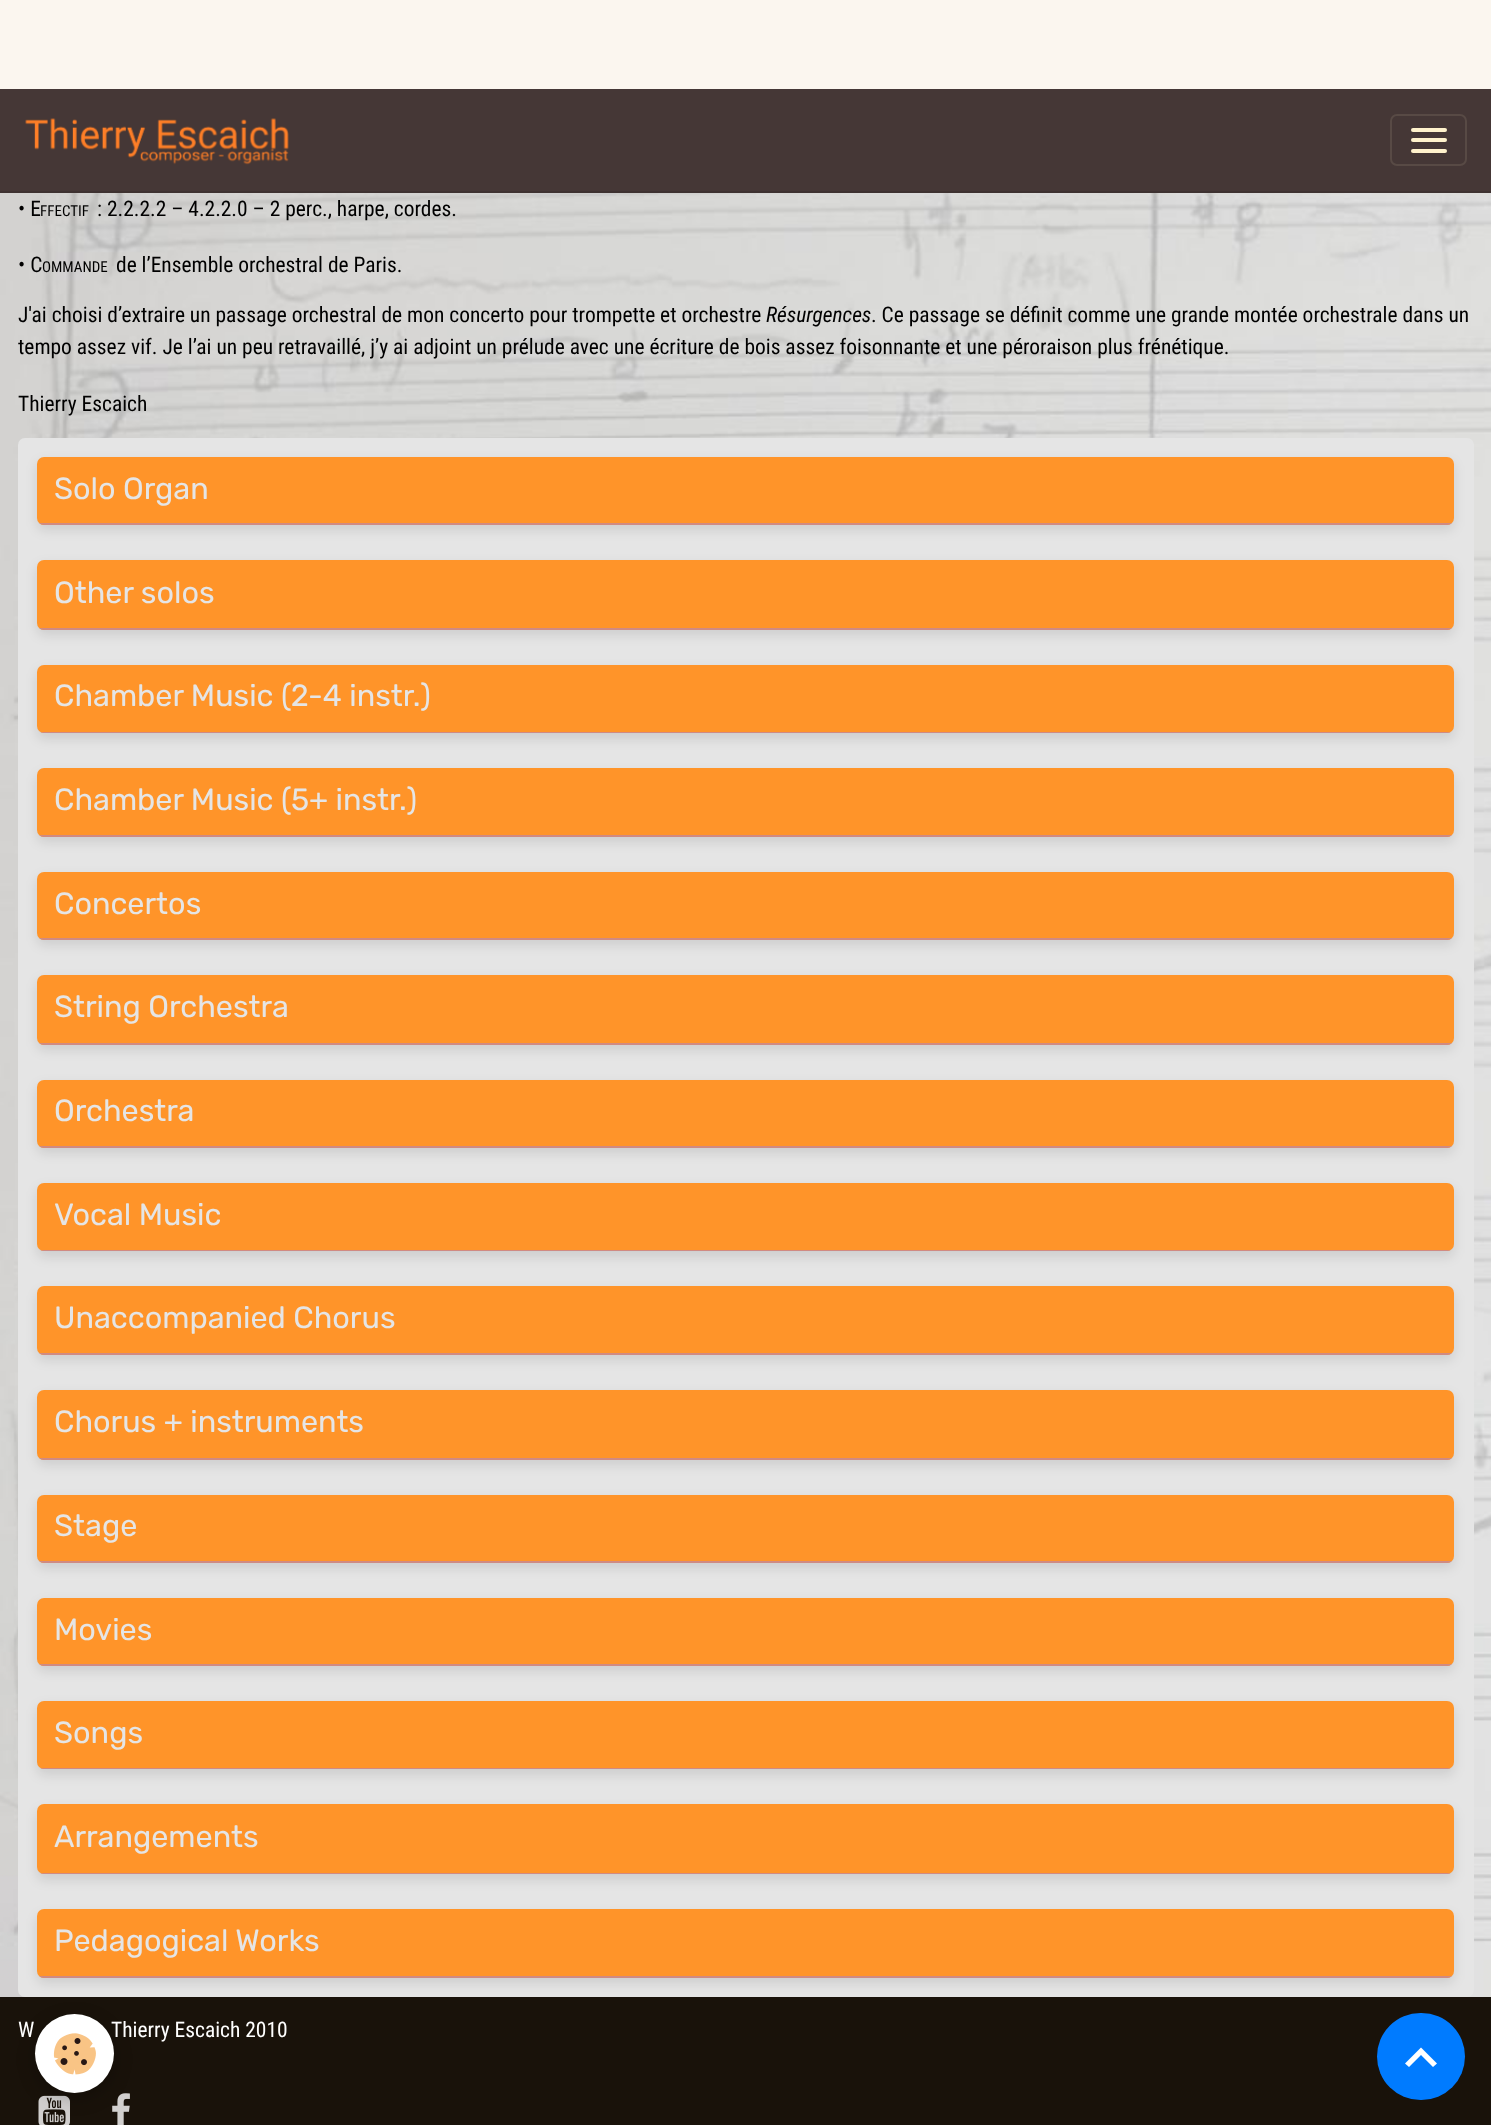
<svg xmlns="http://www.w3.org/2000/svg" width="1491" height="2125">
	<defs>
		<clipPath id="clip1"><rect x="37" y="457" width="1417" height="68" rx="7" /></clipPath>
		<clipPath id="clip2"><rect x="37" y="560" width="1417" height="70" rx="7" /></clipPath>
		<clipPath id="clip3"><rect x="37" y="665" width="1417" height="68" rx="7" /></clipPath>
		<clipPath id="clip4"><rect x="37" y="768" width="1417" height="69" rx="7" /></clipPath>
		<clipPath id="clip5"><rect x="37" y="872" width="1417" height="68" rx="7" /></clipPath>
		<clipPath id="clip6"><rect x="37" y="975" width="1417" height="70" rx="7" /></clipPath>
		<clipPath id="clip7"><rect x="37" y="1080" width="1417" height="68" rx="7" /></clipPath>
		<clipPath id="clip8"><rect x="37" y="1183" width="1417" height="68" rx="7" /></clipPath>
		<clipPath id="clip9"><rect x="37" y="1286" width="1417" height="69" rx="7" /></clipPath>
		<clipPath id="clip10"><rect x="37" y="1390" width="1417" height="70" rx="7" /></clipPath>
		<clipPath id="clip11"><rect x="37" y="1495" width="1417" height="68" rx="7" /></clipPath>
		<clipPath id="clip12"><rect x="37" y="1598" width="1417" height="68" rx="7" /></clipPath>
		<clipPath id="clip13"><rect x="37" y="1701" width="1417" height="68" rx="7" /></clipPath>
		<clipPath id="clip14"><rect x="37" y="1804" width="1417" height="70" rx="7" /></clipPath>
		<clipPath id="clip15"><rect x="37" y="1909" width="1417" height="69" rx="7" /></clipPath>
	</defs>
	<rect width="100%" height="100%" fill="#FFFFFF" />
	<image x="0" y="193" width="1491" height="1804" href="assets/img1.png" />
	<rect x="0" y="0" width="1491" height="89" fill="#FBF6EF" />
	<rect x="0" y="89" width="1491" height="102" fill="#453736" />
	<rect x="0" y="191" width="1491" height="2" fill="#3E3231" />
	<image x="25" y="118" width="264" height="47" href="assets/img2.png" />
	<rect x="1391" y="115" width="75" height="50" rx="6" fill="none" stroke="#584A45" stroke-width="2" />
	<rect x="1411" y="128" width="36" height="4" rx="2" fill="#FFF2CC" />
	<rect x="1411" y="138" width="36" height="4" rx="2" fill="#FFF2CC" />
	<rect x="1411" y="149" width="36" height="4" rx="2" fill="#FFF2CC" />
	<text x="18" y="216" font-family="Roboto Condensed" font-size="21.45" fill="#000000">• E</text>
	<text x="40" y="216" font-family="Roboto Condensed" font-size="15" fill="#000000">FFECTIF</text>
	<g font-family="Roboto Condensed" font-size="21.45" fill="#000000">
		<text x="97" y="216">: 2.2.2.2 – 4.2.2.0 – 2 perc., harpe, cordes.</text>
		<text x="18" y="272">• C</text>
	</g>
	<text x="42" y="272" font-family="Roboto Condensed" font-size="15" fill="#000000">OMMANDE</text>
	<g font-family="Roboto Condensed" font-size="21.45" fill="#000000">
		<text x="116" y="272">de l’Ensemble orchestral de Paris.</text>
		<text x="18" y="322">J'ai choisi d’extraire un passage orchestral de mon concerto pour trompette et orchestre</text>
	</g>
	<text x="766" y="322" font-family="Roboto Condensed" font-size="21.45" font-style="italic" fill="#000000">Résurgences</text>
	<g font-family="Roboto Condensed" font-size="21.45" fill="#000000">
		<text x="871" y="322">. Ce passage se définit comme une grande montée orchestrale dans un</text>
		<text x="18" y="354">tempo assez vif. Je l’ai un peu retravaillé, j’y ai adjoint un prélude avec une écriture de bois assez foisonnante et une péroraison plus frénétique.</text>
		<text x="18" y="411">Thierry Escaich</text>
	</g>
	<rect x="19" y="439" width="1454" height="1557" rx="6" fill="#E5E5E5" stroke="#E5E5E5" stroke-width="2" />
	<rect x="37" y="462" width="1417" height="68" rx="7" fill="#000000" fill-opacity="0.1" filter="blur(6px)" />
	<rect x="37" y="457" width="1417" height="68" rx="7" fill="#FF9429" />
	<g clip-path="url(#clip1)">
		<rect x="37" y="523" width="1417" height="2" fill="#D08A82" />
	</g>
	<text x="54" y="499" font-family="Rubik" font-size="30.6" fill="#E5E5E5">Solo Organ</text>
	<rect x="37" y="565" width="1417" height="70" rx="7" fill="#000000" fill-opacity="0.1" filter="blur(6px)" />
	<rect x="37" y="560" width="1417" height="70" rx="7" fill="#FF9429" />
	<g clip-path="url(#clip2)">
		<rect x="37" y="628" width="1417" height="2" fill="#D08A82" />
	</g>
	<text x="54" y="603" font-family="Rubik" font-size="30.6" fill="#E5E5E5">Other solos</text>
	<rect x="37" y="670" width="1417" height="69" rx="7" fill="#000000" fill-opacity="0.1" filter="blur(6px)" />
	<rect x="37" y="665" width="1417" height="68" rx="7" fill="#FF9429" />
	<g clip-path="url(#clip3)">
		<rect x="37" y="732" width="1417" height="1" fill="#D08A82" />
	</g>
	<text x="54" y="706" font-family="Rubik" font-size="30.6" fill="#E5E5E5">Chamber Music (2-4 instr.)</text>
	<rect x="37" y="774" width="1417" height="68" rx="7" fill="#000000" fill-opacity="0.1" filter="blur(6px)" />
	<rect x="37" y="768" width="1417" height="69" rx="7" fill="#FF9429" />
	<g clip-path="url(#clip4)">
		<rect x="37" y="835" width="1417" height="2" fill="#D08A82" />
	</g>
	<text x="54" y="810" font-family="Rubik" font-size="30.6" fill="#E5E5E5">Chamber Music (5+ instr.)</text>
	<rect x="37" y="877" width="1417" height="68" rx="7" fill="#000000" fill-opacity="0.1" filter="blur(6px)" />
	<rect x="37" y="872" width="1417" height="68" rx="7" fill="#FF9429" />
	<g clip-path="url(#clip5)">
		<rect x="37" y="938" width="1417" height="2" fill="#D08A82" />
	</g>
	<text x="54" y="914" font-family="Rubik" font-size="30.6" fill="#E5E5E5">Concertos</text>
	<rect x="37" y="980" width="1417" height="70" rx="7" fill="#000000" fill-opacity="0.1" filter="blur(6px)" />
	<rect x="37" y="975" width="1417" height="70" rx="7" fill="#FF9429" />
	<g clip-path="url(#clip6)">
		<rect x="37" y="1043" width="1417" height="2" fill="#D08A82" />
	</g>
	<text x="54" y="1017" font-family="Rubik" font-size="30.6" fill="#E5E5E5">String Orchestra</text>
	<rect x="37" y="1085" width="1417" height="68" rx="7" fill="#000000" fill-opacity="0.1" filter="blur(6px)" />
	<rect x="37" y="1080" width="1417" height="68" rx="7" fill="#FF9429" />
	<g clip-path="url(#clip7)">
		<rect x="37" y="1146" width="1417" height="2" fill="#D08A82" />
	</g>
	<text x="54" y="1121" font-family="Rubik" font-size="30.6" fill="#E5E5E5">Orchestra</text>
	<rect x="37" y="1188" width="1417" height="69" rx="7" fill="#000000" fill-opacity="0.1" filter="blur(6px)" />
	<rect x="37" y="1183" width="1417" height="68" rx="7" fill="#FF9429" />
	<g clip-path="url(#clip8)">
		<rect x="37" y="1250" width="1417" height="1" fill="#D08A82" />
	</g>
	<text x="54" y="1225" font-family="Rubik" font-size="30.6" fill="#E5E5E5">Vocal Music</text>
	<rect x="37" y="1292" width="1417" height="68" rx="7" fill="#000000" fill-opacity="0.1" filter="blur(6px)" />
	<rect x="37" y="1286" width="1417" height="69" rx="7" fill="#FF9429" />
	<g clip-path="url(#clip9)">
		<rect x="37" y="1353" width="1417" height="2" fill="#D08A82" />
	</g>
	<text x="54" y="1328" font-family="Rubik" font-size="30.6" fill="#E5E5E5">Unaccompanied Chorus</text>
	<rect x="37" y="1395" width="1417" height="70" rx="7" fill="#000000" fill-opacity="0.1" filter="blur(6px)" />
	<rect x="37" y="1390" width="1417" height="70" rx="7" fill="#FF9429" />
	<g clip-path="url(#clip10)">
		<rect x="37" y="1458" width="1417" height="2" fill="#D08A82" />
	</g>
	<text x="54" y="1432" font-family="Rubik" font-size="30.6" fill="#E5E5E5">Chorus + instruments</text>
	<rect x="37" y="1500" width="1417" height="68" rx="7" fill="#000000" fill-opacity="0.1" filter="blur(6px)" />
	<rect x="37" y="1495" width="1417" height="68" rx="7" fill="#FF9429" />
	<g clip-path="url(#clip11)">
		<rect x="37" y="1561" width="1417" height="2" fill="#D08A82" />
	</g>
	<text x="54" y="1536" font-family="Rubik" font-size="30.6" fill="#E5E5E5">Stage</text>
	<rect x="37" y="1603" width="1417" height="68" rx="7" fill="#000000" fill-opacity="0.1" filter="blur(6px)" />
	<rect x="37" y="1598" width="1417" height="68" rx="7" fill="#FF9429" />
	<g clip-path="url(#clip12)">
		<rect x="37" y="1664" width="1417" height="2" fill="#D08A82" />
	</g>
	<text x="54" y="1640" font-family="Rubik" font-size="30.6" fill="#E5E5E5">Movies</text>
	<rect x="37" y="1706" width="1417" height="69" rx="7" fill="#000000" fill-opacity="0.1" filter="blur(6px)" />
	<rect x="37" y="1701" width="1417" height="68" rx="7" fill="#FF9429" />
	<g clip-path="url(#clip13)">
		<rect x="37" y="1768" width="1417" height="1" fill="#D08A82" />
	</g>
	<text x="54" y="1743" font-family="Rubik" font-size="30.6" fill="#E5E5E5">Songs</text>
	<rect x="37" y="1810" width="1417" height="70" rx="7" fill="#000000" fill-opacity="0.1" filter="blur(6px)" />
	<rect x="37" y="1804" width="1417" height="70" rx="7" fill="#FF9429" />
	<g clip-path="url(#clip14)">
		<rect x="37" y="1873" width="1417" height="1" fill="#D08A82" />
	</g>
	<text x="54" y="1847" font-family="Rubik" font-size="30.6" fill="#E5E5E5">Arrangements</text>
	<rect x="0" y="1997" width="1491" height="128" fill="#19120A" />
	<rect x="37" y="1915" width="1417" height="68" rx="7" fill="#000000" fill-opacity="0.1" filter="blur(6px)" />
	<rect x="37" y="1909" width="1417" height="69" rx="7" fill="#FF9429" />
	<g clip-path="url(#clip15)">
		<rect x="37" y="1976" width="1417" height="2" fill="#D08A82" />
	</g>
	<text x="54" y="1951" font-family="Rubik" font-size="30.6" fill="#E5E5E5">Pedagogical Works</text>
	<image x="38" y="2095" width="32" height="30" href="assets/img4.png" />
	<image x="112" y="2093" width="18" height="32" href="assets/img5.png" />
	<rect x="35" y="2020" width="79" height="78" rx="39" fill="#000000" fill-opacity="0.24" filter="blur(9px)" />
	<circle cx="74.5" cy="2053.5" r="39.5" fill="#FFFFFF" />
	<image x="53" y="2033" width="43" height="42" href="assets/img3.png" />
	<rect x="1377" y="2013" width="88" height="87" rx="43.5" fill="#007BFF" />
	<path d="M1421 2047.5L1437 2063.5L1433 2067L1421 2055L1409 2067L1405 2063.5Z" fill="#FFFFFF" />
	<g font-family="Roboto Condensed" font-size="21.45" fill="#FFFFFF">
		<text x="18" y="2037">W</text>
		<text x="111" y="2037">Thierry Escaich 2010</text>
	</g>
</svg>
